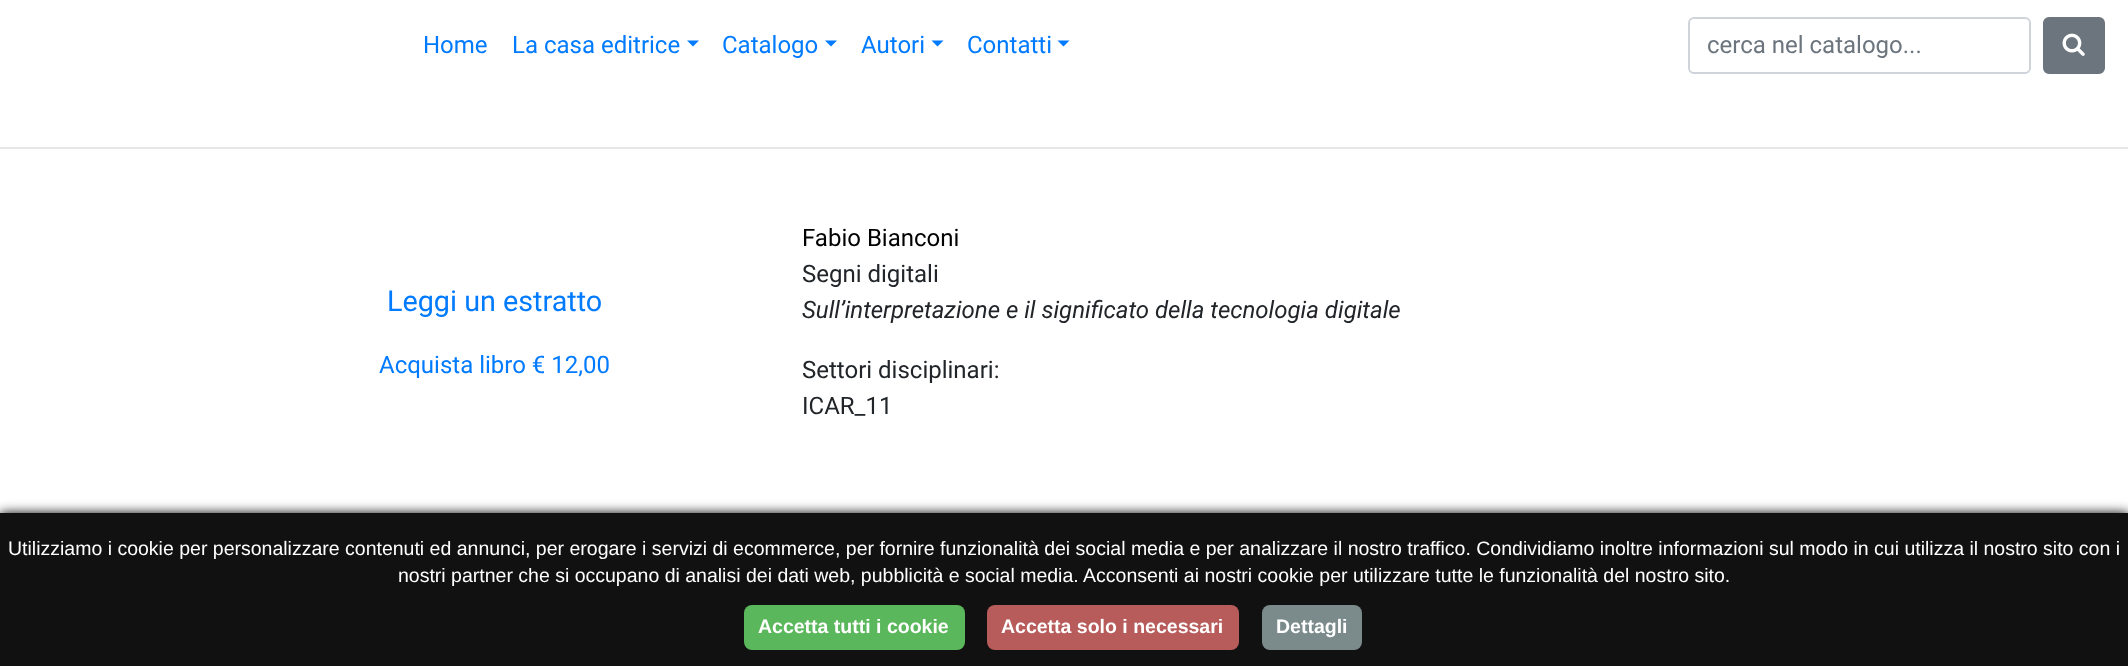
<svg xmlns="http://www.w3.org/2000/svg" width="2128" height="666">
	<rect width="100%" height="100%" fill="#FFFFFF" />
	<g font-family="Roboto" font-size="24" fill="#007BFF">
		<text x="423" y="53">Home</text>
		<text x="512" y="53">La casa editrice</text>
	</g>
	<path d="M687 40.5H699L693 46.5Z" fill="#007BFF" />
	<text x="722" y="53" font-family="Roboto" font-size="24" fill="#007BFF">Catalogo</text>
	<path d="M825 40.5H837L831 46.5Z" fill="#007BFF" />
	<text x="861" y="53" font-family="Roboto" font-size="24" fill="#007BFF">Autori</text>
	<path d="M931.5 40.5H943.5L937.5 46.5Z" fill="#007BFF" />
	<text x="967" y="53" font-family="Roboto" font-size="24" fill="#007BFF">Contatti</text>
	<path d="M1057.5 40.5H1069.5L1063.5 46.5Z" fill="#007BFF" />
	<rect x="1689" y="18" width="341" height="55" rx="5" fill="none" stroke="#CED4DA" stroke-width="2" />
	<text x="1707" y="53" font-family="Roboto" font-size="24" fill="#6C757D">cerca nel catalogo...</text>
	<rect x="2044" y="18" width="60" height="55" rx="5" fill="#6C757D" stroke="#6C757D" stroke-width="2" />
	<image x="2062" y="33" width="23" height="23" href="assets/img1.png" />
	<rect x="0" y="147" width="2128" height="2" fill="#E6E6E6" />
	<text x="387" y="311" font-family="Roboto" font-size="28.75" fill="#007BFF">Leggi un estratto</text>
	<text x="379" y="373" font-family="Roboto" font-size="24" fill="#007BFF">Acquista libro € 12,00</text>
	<text x="802" y="246" font-family="Roboto" font-size="24" fill="#000000">Fabio Bianconi</text>
	<text x="802" y="282" font-family="Roboto" font-size="24" fill="#212529">Segni digitali</text>
	<text x="802" y="318" font-family="Roboto" font-size="24" font-style="italic" fill="#212529">Sull’interpretazione e il significato della tecnologia digitale</text>
	<g font-family="Roboto" font-size="24" fill="#212529">
		<text x="802" y="378">Settori disciplinari:</text>
		<text x="802" y="414">ICAR_11</text>
	</g>
	<rect x="0" y="513" width="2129" height="153" fill="#000000" filter="blur(6px)" />
	<rect x="0" y="513" width="2128" height="153" fill="#111111" />
	<g font-family="Liberation Sans" font-size="19.5" fill="#FFFFFF">
		<text x="8" y="555">Utilizziamo i cookie per personalizzare contenuti ed annunci, per erogare i servizi di ecommerce, per fornire funzionalità dei social media e per analizzare il nostro traffico. Condividiamo inoltre informazioni sul modo in cui utilizza il nostro sito con i</text>
		<text x="398" y="582">nostri partner che si occupano di analisi dei dati web, pubblicità e social media. Acconsenti ai nostri cookie per utilizzare tutte le funzionalità del nostro sito.</text>
	</g>
	<rect x="744" y="605" width="221" height="45" rx="8" fill="#5BB75B" />
	<text x="758" y="633" font-family="Liberation Sans" font-size="19.5" font-weight="700" fill="#FFFFFF">Accetta tutti i cookie</text>
	<rect x="987" y="605" width="252" height="45" rx="8" fill="#B75B5B" />
	<text x="1001" y="633" font-family="Liberation Sans" font-size="19.5" font-weight="700" fill="#FFFFFF">Accetta solo i necessari</text>
	<rect x="1262" y="605" width="100" height="45" rx="8" fill="#7B8A8B" />
	<text x="1276" y="633" font-family="Liberation Sans" font-size="19.5" font-weight="700" fill="#FFFFFF">Dettagli</text>
</svg>
